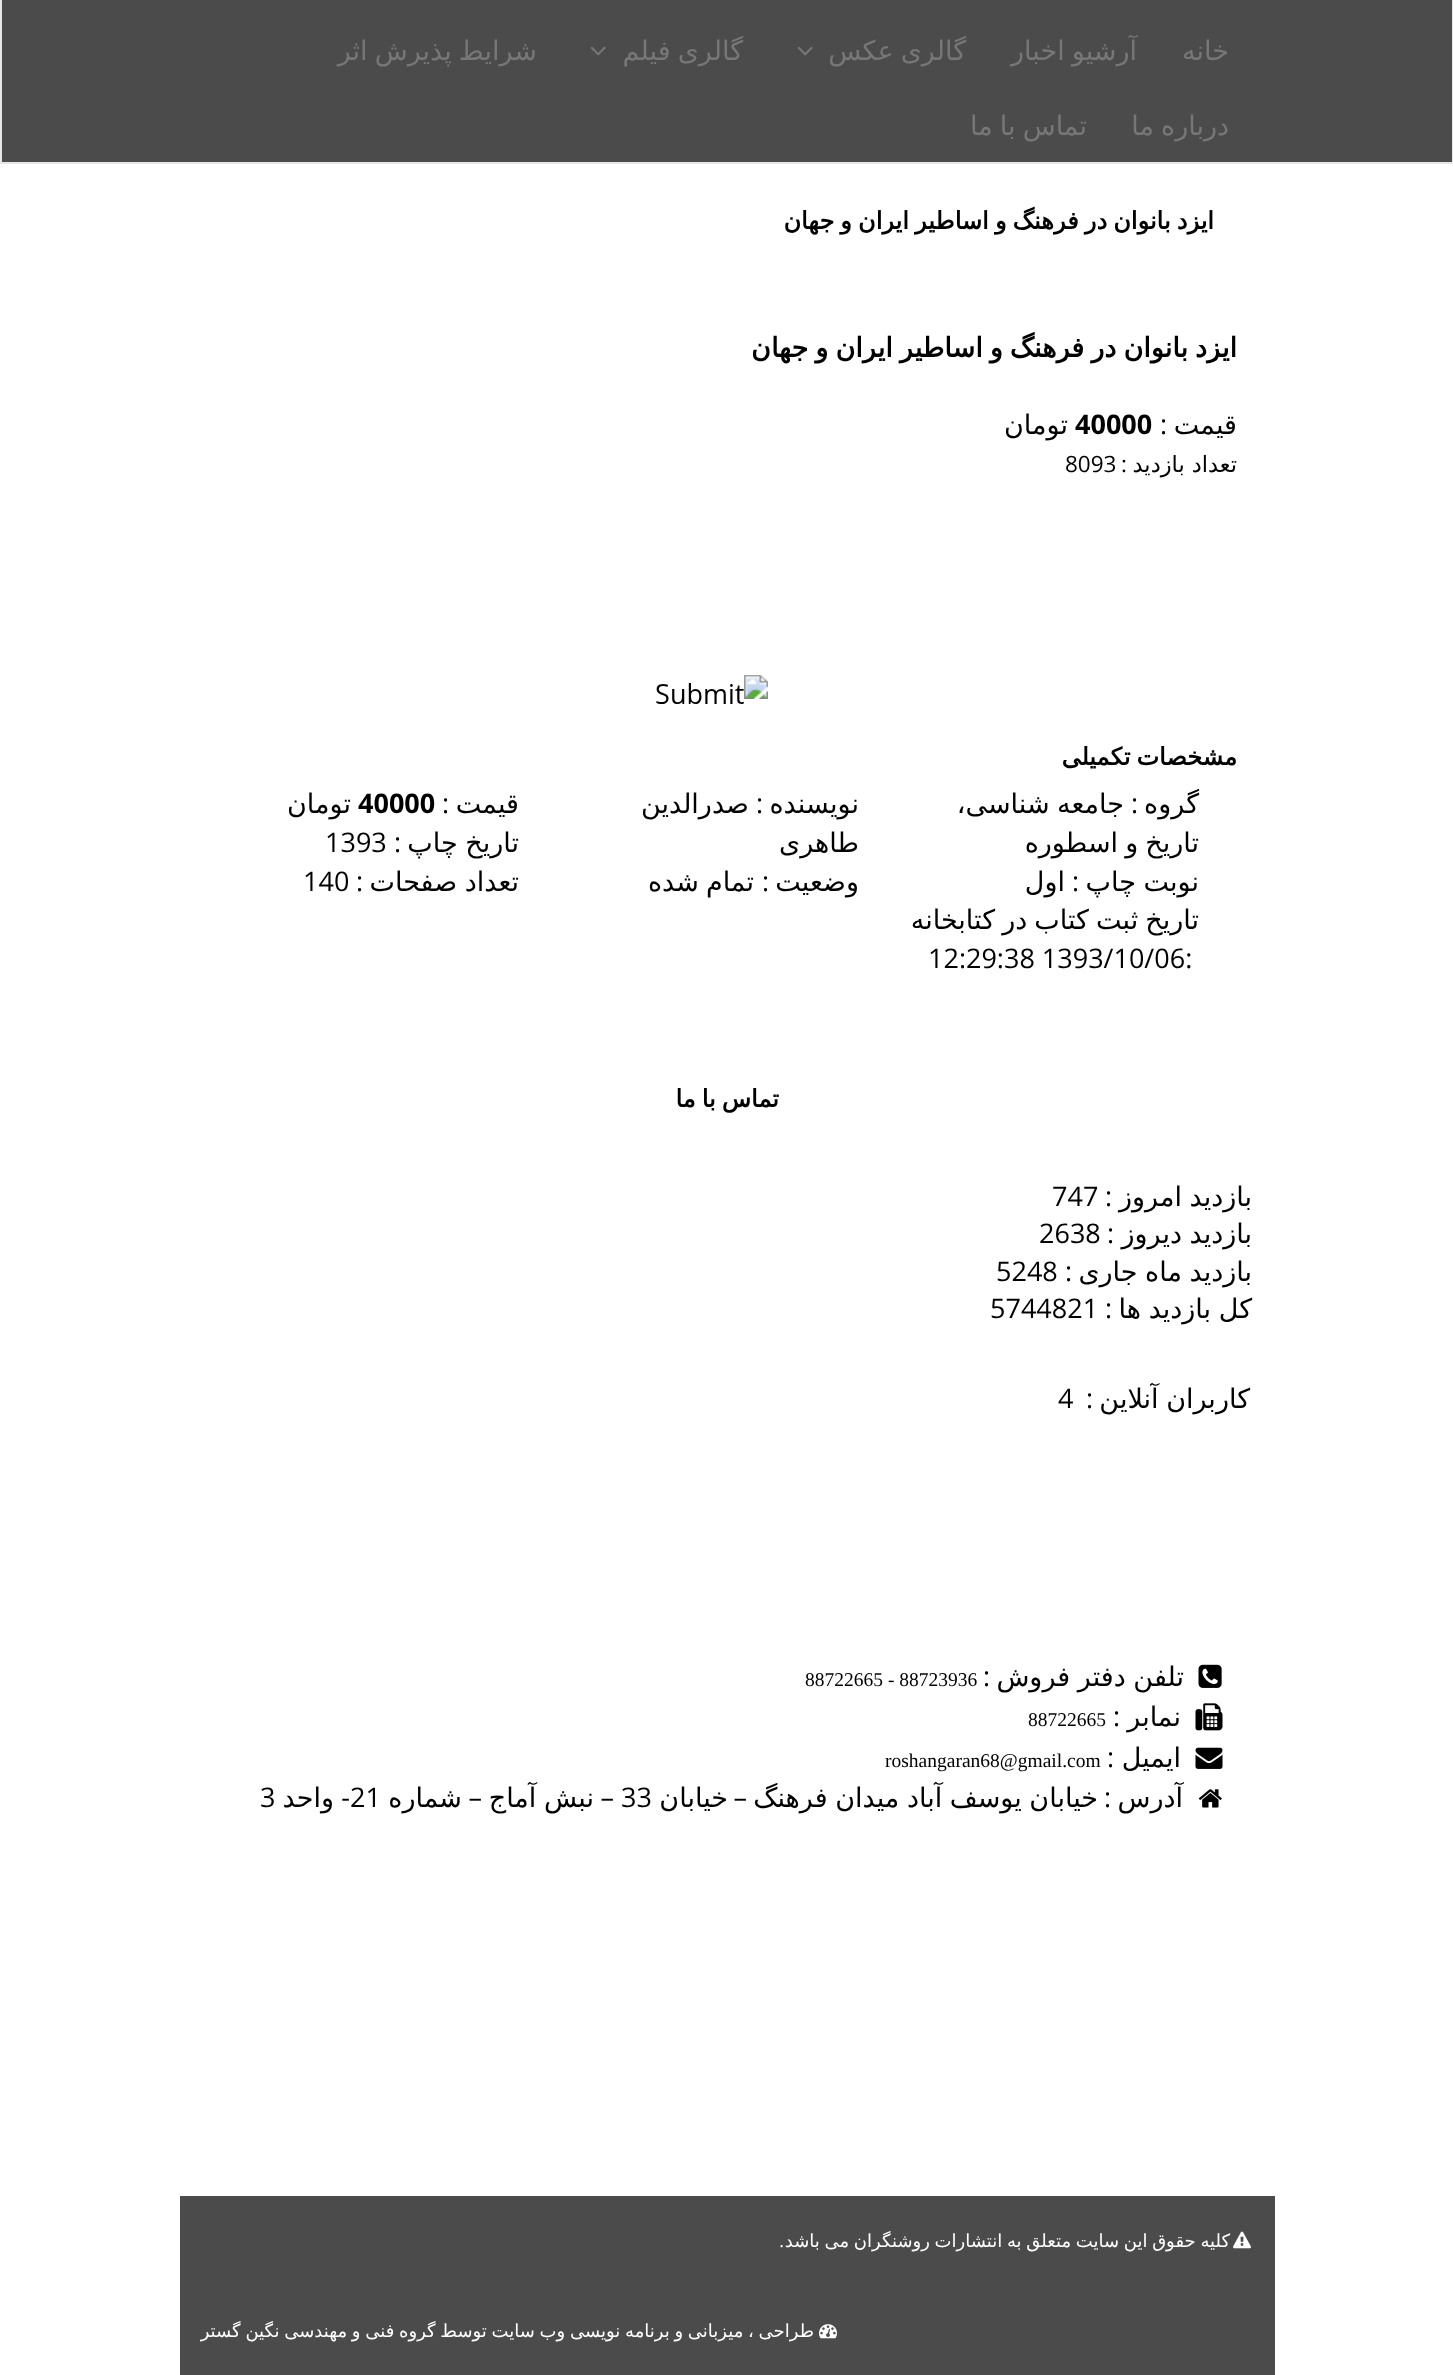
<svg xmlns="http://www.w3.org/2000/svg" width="1453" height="2375">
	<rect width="100%" height="100%" fill="#FFFFFF" />
	<rect x="1" y="-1" width="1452" height="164" fill="#4B4B4B" stroke="#E7E7E7" stroke-width="2" />
	<g font-family="DejaVu Sans" font-size="27" direction="rtl" fill="#777777">
		<text x="1229" y="60">خانه</text>
		<text x="1137" y="60" word-spacing="-1.5">آرشیو اخبار</text>
		<text x="966" y="60" word-spacing="-1.5">گالری عکس</text>
	</g>
	<image x="797" y="46" width="16" height="10" href="assets/img1.png" />
	<text x="743" y="60" word-spacing="-1.5" font-family="DejaVu Sans" font-size="27" direction="rtl" fill="#777777">گالری فیلم</text>
	<image x="590" y="46" width="16" height="10" href="assets/img1.png" />
	<g font-family="DejaVu Sans" font-size="27" direction="rtl" fill="#777777">
		<text x="537" y="60" word-spacing="-1.5">شرایط پذیرش اثر</text>
		<text x="1229" y="135" word-spacing="-1.5">درباره ما</text>
		<text x="1087" y="135" word-spacing="-1.5">تماس با ما</text>
	</g>
	<text x="1214" y="229" word-spacing="-1.5" font-family="DejaVu Sans" font-size="24" font-weight="700" direction="rtl" fill="#000000">ایزد بانوان در فرهنگ و اساطیر ایران و جهان</text>
	<text x="1237" y="357" word-spacing="-1.5" font-family="DejaVu Sans" font-size="27" font-weight="700" direction="rtl" fill="#000000">ایزد بانوان در فرهنگ و اساطیر ایران و جهان</text>
	<text x="1237" y="434" font-family="DejaVu Sans" font-size="27" direction="rtl" fill="#000000">قیمت</text>
	<text x="1167" y="434" font-family="Open Sans" font-size="27" direction="rtl" fill="#000000">:</text>
	<text x="1075" y="434" font-family="Open Sans" font-size="27" font-weight="700" fill="#000000">40000</text>
	<text x="1068" y="434" font-family="DejaVu Sans" font-size="27" direction="rtl" fill="#000000">تومان</text>
	<text x="1237" y="472" font-family="DejaVu Sans" font-size="22.5" direction="rtl" fill="#000000">تعداد بازدید</text>
	<text x="1127" y="472" font-family="Open Sans" font-size="22.5" direction="rtl" fill="#000000">:</text>
	<text x="1065" y="472" font-family="Open Sans" font-size="22.5" fill="#000000">8093</text>
	<image x="656" y="675" width="112" height="29" href="assets/img2.png" />
	<text x="1237" y="765" word-spacing="-1.5" font-family="DejaVu Sans" font-size="24" font-weight="700" direction="rtl" fill="#000000">مشخصات تکمیلی</text>
	<text x="1199" y="813" font-family="DejaVu Sans" font-size="27" direction="rtl" fill="#000000">گروه</text>
	<text x="1138" y="813" font-family="Open Sans" font-size="27" direction="rtl" fill="#000000">:</text>
	<g font-family="DejaVu Sans" font-size="27" direction="rtl" fill="#000000">
		<text x="1124" y="813" word-spacing="-1">جامعه شناسی،</text>
		<text x="1199" y="852" word-spacing="-1.5">تاریخ و اسطوره</text>
		<text x="859" y="813">نویسنده</text>
	</g>
	<text x="763" y="813" font-family="Open Sans" font-size="27" direction="rtl" fill="#000000">:</text>
	<g font-family="DejaVu Sans" font-size="27" direction="rtl" fill="#000000">
		<text x="749" y="813">صدرالدین</text>
		<text x="859" y="852">طاهری</text>
		<text x="519" y="813">قیمت</text>
	</g>
	<text x="449" y="813" font-family="Open Sans" font-size="27" direction="rtl" fill="#000000">:</text>
	<text x="358" y="813" font-family="Open Sans" font-size="27" font-weight="700" fill="#000000">40000</text>
	<g font-family="DejaVu Sans" font-size="27" direction="rtl" fill="#000000">
		<text x="351" y="813">تومان</text>
		<text x="519" y="852" word-spacing="-1">تاریخ چاپ</text>
	</g>
	<text x="401" y="852" font-family="Open Sans" font-size="27" direction="rtl" fill="#000000">:</text>
	<text x="325" y="852" font-family="Open Sans" font-size="27" fill="#000000">1393</text>
	<text x="1199" y="891" word-spacing="-1" font-family="DejaVu Sans" font-size="27" direction="rtl" fill="#000000">نوبت چاپ</text>
	<text x="1079" y="891" font-family="Open Sans" font-size="27" direction="rtl" fill="#000000">:</text>
	<g font-family="DejaVu Sans" font-size="27" direction="rtl" fill="#000000">
		<text x="1065" y="891">اول</text>
		<text x="859" y="891">وضعیت</text>
	</g>
	<text x="769" y="891" font-family="Open Sans" font-size="27" direction="rtl" fill="#000000">:</text>
	<g font-family="DejaVu Sans" font-size="27" direction="rtl" fill="#000000">
		<text x="754" y="891" word-spacing="-1.5">تمام شده</text>
		<text x="519" y="891" word-spacing="-1">تعداد صفحات</text>
	</g>
	<text x="363" y="891" font-family="Open Sans" font-size="27" direction="rtl" fill="#000000">:</text>
	<text x="303" y="891" font-family="Open Sans" font-size="27" fill="#000000">140</text>
	<text x="1199" y="929" word-spacing="-1.5" font-family="DejaVu Sans" font-size="27" direction="rtl" fill="#000000">تاریخ ثبت کتاب در کتابخانه</text>
	<text x="928" y="968" font-family="Open Sans" font-size="27" fill="#000000">12:29:38 1393/10/06:</text>
	<text x="779" y="1107" word-spacing="-1.5" font-family="DejaVu Sans" font-size="24" font-weight="700" direction="rtl" fill="#000000">تماس با ما</text>
	<text x="1252" y="1206" word-spacing="-1" font-family="DejaVu Sans" font-size="27" direction="rtl" fill="#000000">بازدید امروز</text>
	<text x="1112" y="1206" font-family="Open Sans" font-size="27" direction="rtl" fill="#000000">:</text>
	<text x="1052" y="1206" font-family="Open Sans" font-size="27" fill="#000000">747</text>
	<text x="1252" y="1243" word-spacing="-1" font-family="DejaVu Sans" font-size="27" direction="rtl" fill="#000000">بازدید دیروز</text>
	<text x="1114" y="1243" font-family="Open Sans" font-size="27" direction="rtl" fill="#000000">:</text>
	<text x="1039" y="1243" font-family="Open Sans" font-size="27" fill="#000000">2638</text>
	<text x="1252" y="1281" word-spacing="-1" font-family="DejaVu Sans" font-size="27" direction="rtl" fill="#000000">بازدید ماه جاری</text>
	<text x="1072" y="1281" font-family="Open Sans" font-size="27" direction="rtl" fill="#000000">:</text>
	<text x="996" y="1281" font-family="Open Sans" font-size="27" fill="#000000">5248</text>
	<text x="1252" y="1318" word-spacing="-1" font-family="DejaVu Sans" font-size="27" direction="rtl" fill="#000000">کل بازدید ها</text>
	<text x="1112" y="1318" font-family="Open Sans" font-size="27" direction="rtl" fill="#000000">:</text>
	<text x="990" y="1318" font-family="Open Sans" font-size="27" fill="#000000">5744821</text>
	<text x="1250" y="1408" word-spacing="-1" font-family="DejaVu Sans" font-size="27" direction="rtl" fill="#000000">کاربران آنلاین</text>
	<text x="1093" y="1408" font-family="Open Sans" font-size="27" direction="rtl" fill="#000000">:</text>
	<text x="1058" y="1408" font-family="Open Sans" font-size="27" fill="#000000">4</text>
	<image x="1198" y="1664" width="24" height="24" href="assets/img3.png" />
	<text x="1184" y="1686" word-spacing="-1" font-family="DejaVu Sans" font-size="27" direction="rtl" fill="#000000">تلفن دفتر فروش</text>
	<text x="990" y="1686" font-family="Open Sans" font-size="27" direction="rtl" fill="#000000">:</text>
	<text x="805" y="1686" font-family="Liberation Serif" font-size="19.5" fill="#000000">88722665 - 88723936</text>
	<image x="1195" y="1703" width="28" height="28" href="assets/img4.png" />
	<text x="1181" y="1726" font-family="DejaVu Sans" font-size="27" direction="rtl" fill="#000000">نمابر</text>
	<text x="1120" y="1726" font-family="Open Sans" font-size="27" direction="rtl" fill="#000000">:</text>
	<text x="1028" y="1726" font-family="Liberation Serif" font-size="19.5" fill="#000000">88722665</text>
	<image x="1195" y="1747" width="28" height="22" href="assets/img5.png" />
	<text x="1181" y="1767" font-family="DejaVu Sans" font-size="27" direction="rtl" fill="#000000">ایمیل</text>
	<text x="1114" y="1767" font-family="Open Sans" font-size="27" direction="rtl" fill="#000000">:</text>
	<text x="885" y="1767" font-family="Liberation Serif" font-size="19.5" fill="#000000">roshangaran68@gmail.com</text>
	<image x="1198" y="1789" width="24" height="19" href="assets/img6.png" />
	<text x="1183" y="1807" font-family="DejaVu Sans" font-size="27" direction="rtl" fill="#000000">آدرس</text>
	<text x="1111" y="1807" font-family="Open Sans" font-size="27" direction="rtl" fill="#000000">:</text>
	<text x="1098" y="1807" word-spacing="-1" font-family="DejaVu Sans" font-size="27" direction="rtl" fill="#000000">خیابان یوسف آباد میدان فرهنگ</text>
	<text x="747" y="1807" font-family="Open Sans" font-size="27" direction="rtl" fill="#000000">–</text>
	<text x="728" y="1807" font-family="DejaVu Sans" font-size="27" direction="rtl" fill="#000000">خیابان</text>
	<text x="621" y="1807" font-family="Open Sans" font-size="27" fill="#000000">33</text>
	<text x="614" y="1807" font-family="Open Sans" font-size="27" direction="rtl" fill="#000000">–</text>
	<text x="594" y="1807" word-spacing="-1" font-family="DejaVu Sans" font-size="27" direction="rtl" fill="#000000">نبش آماج</text>
	<text x="482" y="1807" font-family="Open Sans" font-size="27" direction="rtl" fill="#000000">–</text>
	<text x="462" y="1807" font-family="DejaVu Sans" font-size="27" direction="rtl" fill="#000000">شماره</text>
	<text x="350" y="1807" font-family="Open Sans" font-size="27" fill="#000000">21</text>
	<text x="350" y="1807" font-family="Open Sans" font-size="27" direction="rtl" fill="#000000">-</text>
	<text x="334" y="1807" font-family="DejaVu Sans" font-size="27" direction="rtl" fill="#000000">واحد</text>
	<text x="260" y="1807" font-family="Open Sans" font-size="27" fill="#000000">3</text>
	<rect x="180" y="2196" width="1095" height="179" fill="#4B4B4B" />
	<image x="1233" y="2231" width="18" height="18" href="assets/img7.png" />
	<text x="1230" y="2247" word-spacing="-1" font-family="DejaVu Sans" font-size="18" direction="rtl" fill="#FFFFFF">کلیه حقوق این سایت متعلق به انتشارات روشنگران می باشد</text>
	<text x="784" y="2247" font-family="Open Sans" font-size="18" direction="rtl" fill="#FFFFFF">.</text>
	<image x="819" y="2324" width="18" height="15" href="assets/img8.png" />
	<text x="814" y="2337" word-spacing="-1" font-family="DejaVu Sans" font-size="18" direction="rtl" fill="#FFFFFF">طراحی ، میزبانی و برنامه نویسی وب سایت توسط گروه فنی و مهندسی نگین گستر</text>
</svg>
